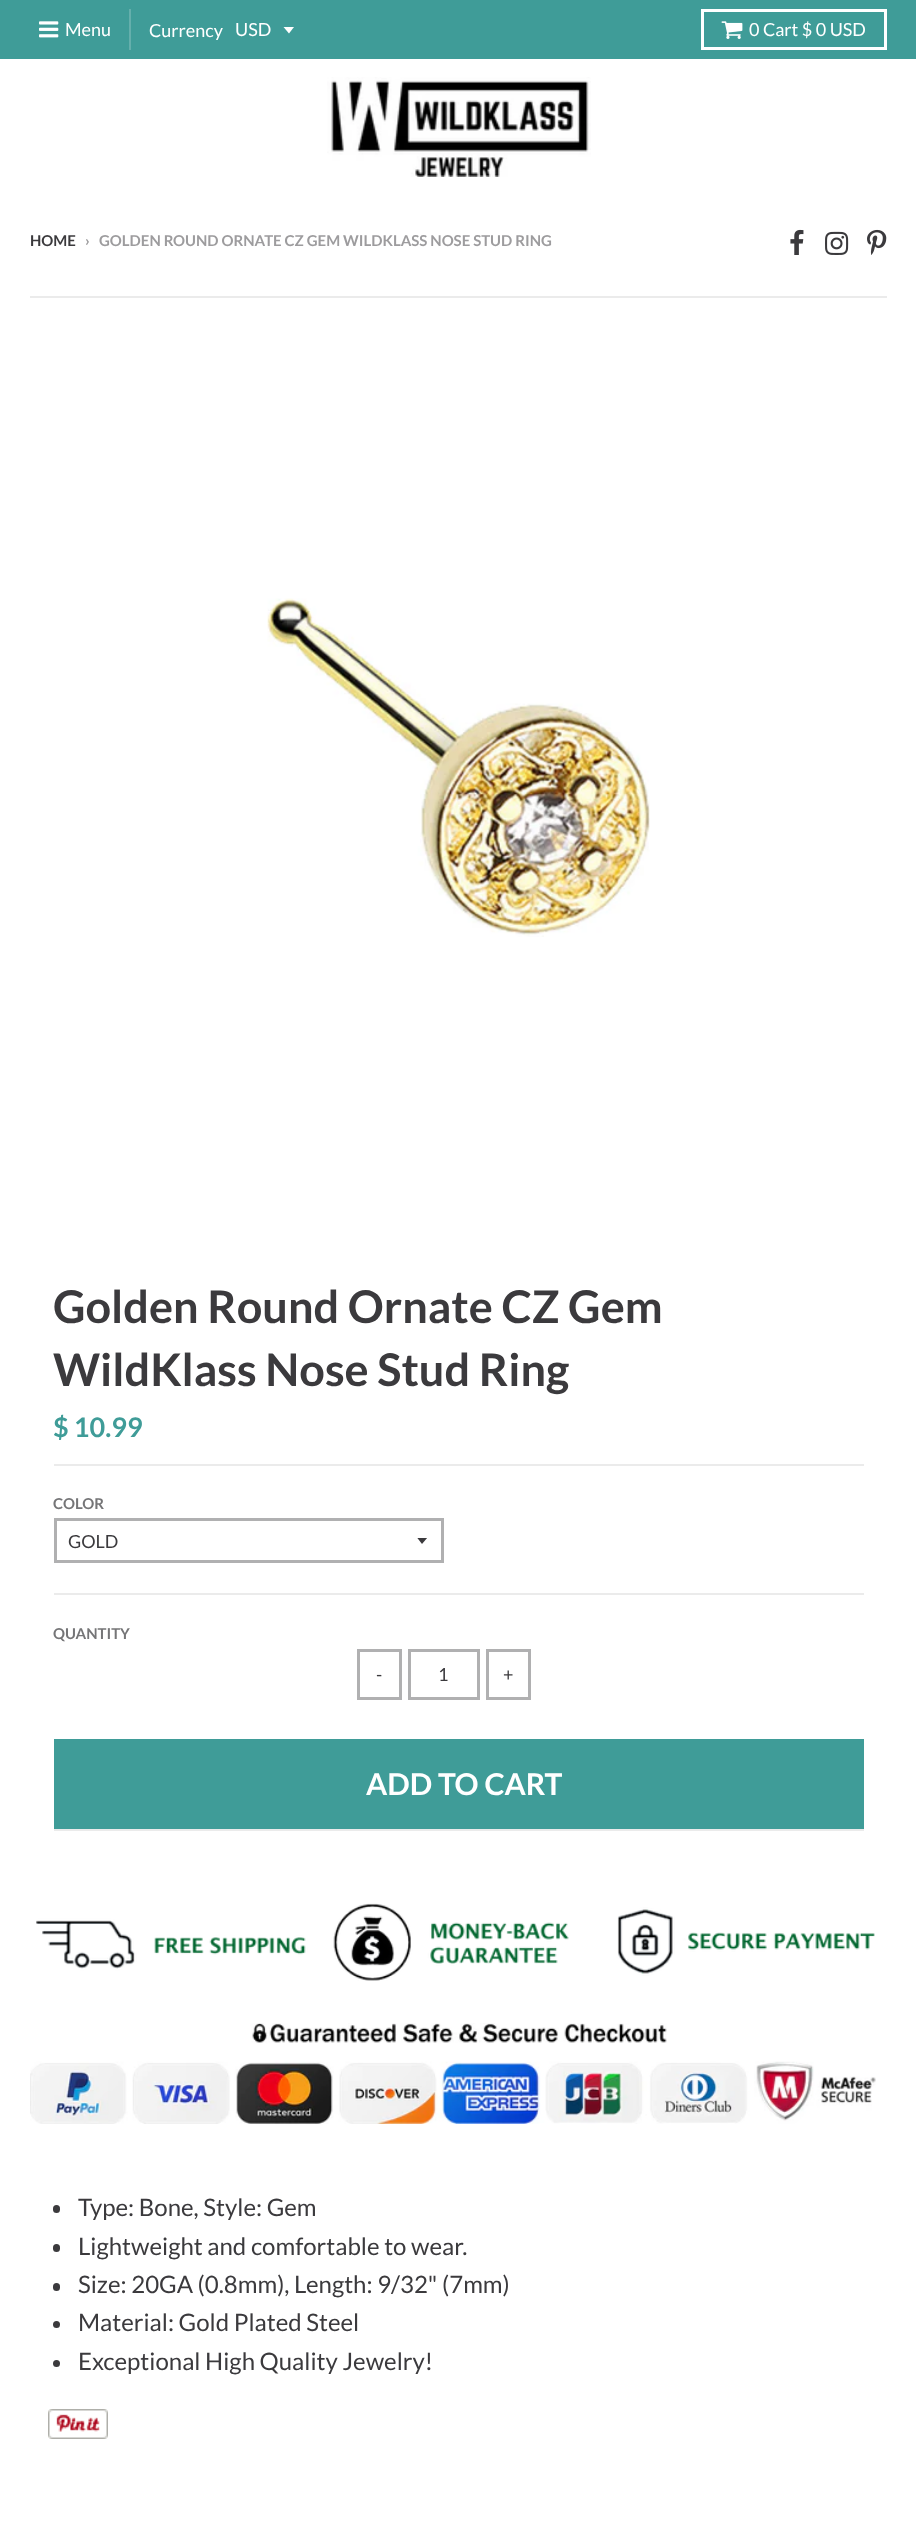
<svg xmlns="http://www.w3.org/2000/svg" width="916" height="2545">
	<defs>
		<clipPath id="clip1"><rect x="417" y="1538" width="12" height="7" /></clipPath>
	</defs>
	<rect width="100%" height="100%" fill="#FFFFFF" />
	<rect x="0" y="0" width="916" height="59" fill="#3F9C98" />
	<rect x="129" y="9" width="2" height="41" fill="#65AFAC" />
	<image x="39" y="21" width="20" height="17" href="assets/img1.png" />
	<g font-family="Lato" font-size="18" fill="#FFFFFF">
		<text x="65" y="36">Menu</text>
		<text x="149" y="37">Currency</text>
	</g>
	<path d="M283.5 27L289 33.5L294 27Z" fill="#FFFFFF" />
	<text x="235" y="36" font-family="Lato" font-size="18" fill="#FFFFFF">USD</text>
	<rect x="702.5" y="10.5" width="183" height="38" fill="none" stroke="#FFFFFF" stroke-width="3" />
	<image x="721" y="21" width="22" height="18" href="assets/img2.png" />
	<text x="749" y="36" font-family="Lato" font-size="18" fill="#FFFFFF">0 Cart $ 0 USD</text>
	<image x="327" y="77" width="264" height="100" href="assets/img3.png" />
	<text x="30" y="246" font-family="Lato" font-size="15" font-weight="700" fill="#3B3A3D">HOME</text>
	<g font-family="Lato" font-size="15" font-weight="700" fill="#9D9C9E">
		<text x="85" y="246">›</text>
		<text x="99" y="246">GOLDEN ROUND ORNATE CZ GEM WILDKLASS NOSE STUD RING</text>
	</g>
	<image x="790" y="229" width="14" height="26" href="assets/img4.png" />
	<image x="825" y="231" width="24" height="24" href="assets/img5.png" />
	<image x="867" y="229" width="20" height="26" href="assets/img6.png" />
	<rect x="30" y="296" width="857" height="2" fill="#EBEBEB" />
	<image x="267" y="598" width="383" height="339" href="assets/img7.png" />
	<rect x="54" y="1829" width="810" height="2" fill="#EBEBEB" />
	<g font-family="Lato" font-size="45" font-weight="700" fill="#3B3A3D">
		<text x="53" y="1323">Golden Round Ornate CZ Gem</text>
		<text x="53" y="1386">WildKlass Nose Stud Ring</text>
	</g>
	<rect x="54" y="1464" width="810" height="2" fill="#EBEBEB" />
	<text x="53" y="1437" font-family="Lato" font-size="27" font-weight="700" fill="#3F9C98">$ 10.99</text>
	<rect x="54" y="1593" width="810" height="2" fill="#EBEBEB" />
	<text x="53" y="1509" font-family="Lato" font-size="15" font-weight="700" fill="#757577">COLOR</text>
	<g clip-path="url(#clip1)">
		<path d="M417 1537.5L422 1544L427.5 1537.5Z" fill="#3B3A3D" />
	</g>
	<rect x="55.5" y="1519.5" width="387" height="42" fill="none" stroke="#B0B0B1" stroke-width="3" />
	<text x="68" y="1548" font-family="Lato" font-size="18" fill="#3B3A3D">GOLD</text>
	<text x="53" y="1639" font-family="Lato" font-size="15" font-weight="700" fill="#757577">QUANTITY</text>
	<rect x="358.5" y="1650.5" width="42" height="48" fill="none" stroke="#B0B0B1" stroke-width="3" />
	<text x="376" y="1681" font-family="Lato" font-size="18" fill="#3B3A3D">-</text>
	<rect x="409.5" y="1650.5" width="69" height="48" fill="none" stroke="#B0B0B1" stroke-width="3" />
	<text x="438" y="1681" font-family="Lato" font-size="18" fill="#3B3A3D">1</text>
	<rect x="487.5" y="1650.5" width="42" height="48" fill="none" stroke="#B0B0B1" stroke-width="3" />
	<text x="503" y="1681" font-family="Lato" font-size="18" fill="#3B3A3D">+</text>
	<rect x="54" y="1739" width="810" height="90" fill="#3F9C98" />
	<text x="366" y="1795" font-family="Lato" font-size="30" font-weight="700" fill="#FFFFFF">ADD TO CART</text>
	<image x="36" y="1903" width="839" height="78" href="assets/img8.png" />
	<image x="30" y="2023" width="846" height="101" href="assets/img9.png" />
	<rect x="53" y="2205" width="7" height="8" rx="3.5" fill="#3B3A3D" />
	<text x="78" y="2216" font-family="Lato" font-size="24" fill="#3B3A3D">Type: Bone, Style: Gem</text>
	<rect x="53" y="2244" width="7" height="8" rx="3.5" fill="#3B3A3D" />
	<text x="78" y="2255" font-family="Lato" font-size="24" fill="#3B3A3D">Lightweight and comfortable to wear.</text>
	<rect x="53" y="2283" width="7" height="8" rx="3.5" fill="#3B3A3D" />
	<text x="78" y="2293" font-family="Lato" font-size="24" fill="#3B3A3D">Size: 20GA (0.8mm), Length: 9/32" (7mm)</text>
	<circle cx="56.5" cy="2324.5" r="3.5" fill="#3B3A3D" />
	<text x="78" y="2331" font-family="Lato" font-size="24" fill="#3B3A3D">Material: Gold Plated Steel</text>
	<circle cx="56.5" cy="2363.5" r="3.5" fill="#3B3A3D" />
	<text x="78" y="2370" font-family="Lato" font-size="24" fill="#3B3A3D">Exceptional High Quality Jewelry!</text>
	<image x="48" y="2409" width="60" height="30" href="assets/img10.png" />
</svg>
